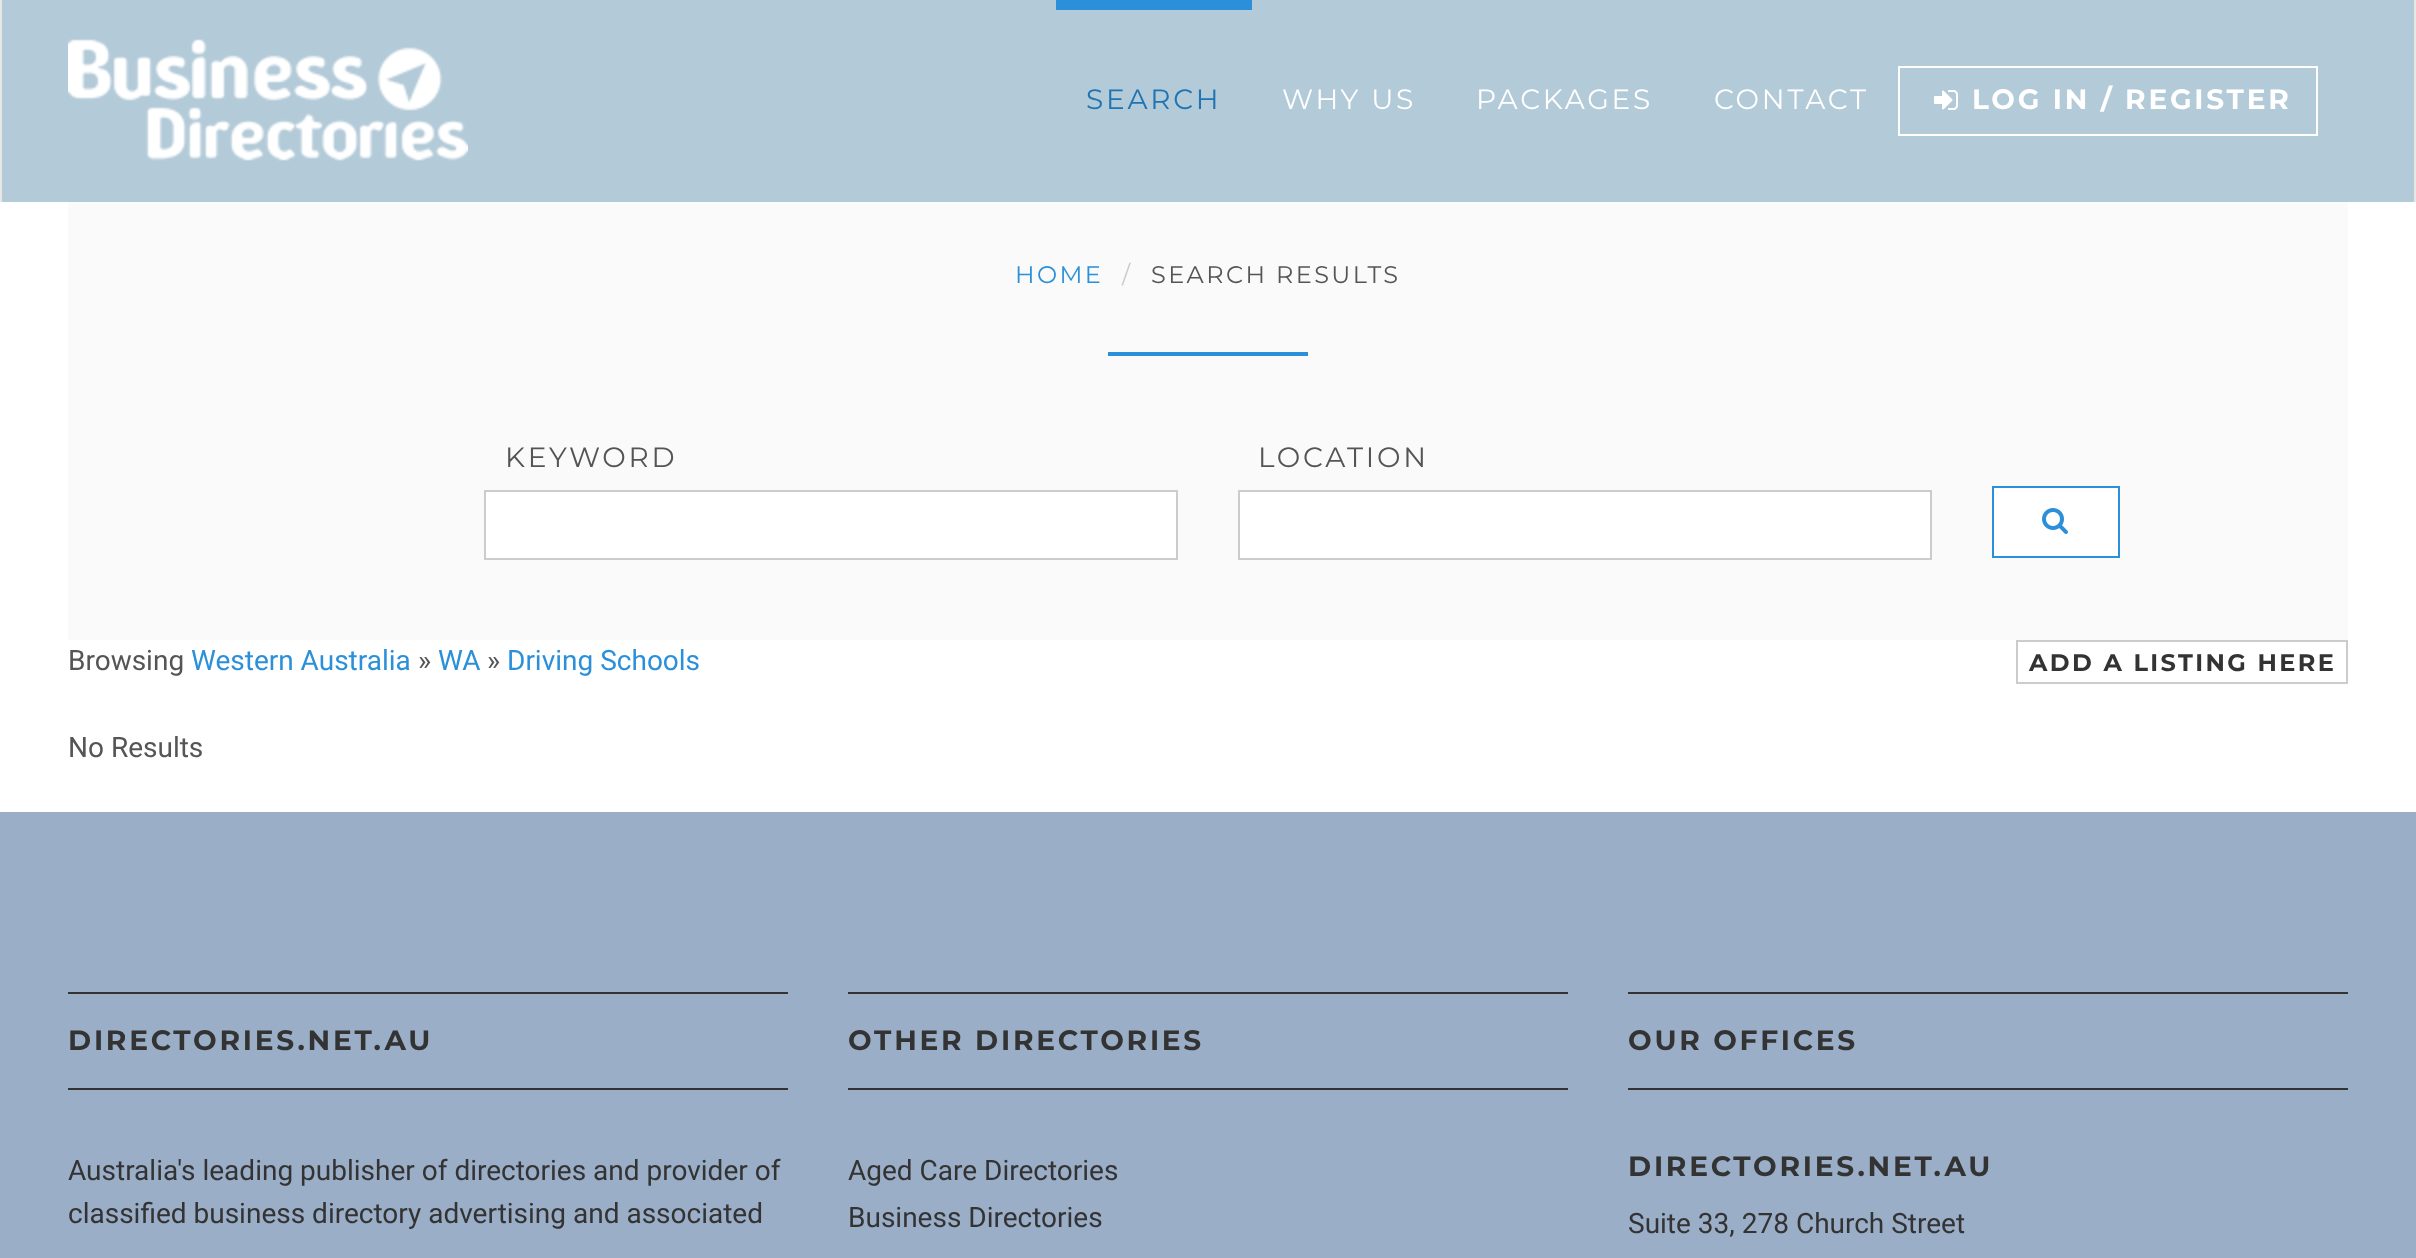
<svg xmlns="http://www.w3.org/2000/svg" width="2416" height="1258">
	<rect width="100%" height="100%" fill="#FFFFFF" />
	<rect x="2" y="0" width="2412" height="202" fill="#B3CAD8" />
	<rect x="2414" y="0" width="2" height="202" fill="#E7E7E7" />
	<rect x="0" y="0" width="2" height="202" fill="#E7E7E7" />
	<image x="68" y="39" width="400" height="122" href="assets/img1.png" />
	<rect x="1056" y="0" width="196" height="10" fill="#2B90D9" />
	<text x="1086" y="109" font-family="Montserrat" font-size="28" letter-spacing="2.75" fill="#2074B1">SEARCH</text>
	<g font-family="Montserrat" font-size="28" letter-spacing="2.75" fill="#FFFFFF">
		<text x="1282" y="109">WHY US</text>
		<text x="1476" y="109">PACKAGES</text>
		<text x="1714" y="109">CONTACT</text>
	</g>
	<rect x="1899" y="67" width="418" height="68" fill="none" stroke="#FFFFFF" stroke-width="2" />
	<image x="1934" y="90" width="24" height="20" href="assets/img2.png" />
	<text x="1972" y="109" font-family="Montserrat" font-size="28" font-weight="700" letter-spacing="2.75" fill="#FFFFFF">LOG IN / REGISTER</text>
	<rect x="68" y="202" width="2280" height="438" fill="#FAFAFA" />
	<text x="1015" y="283" font-family="Montserrat" font-size="24" letter-spacing="2.4" fill="#2B90D9">HOME</text>
	<text x="1122" y="283" font-family="Montserrat" font-size="24" letter-spacing="2.4" fill="#CCCCCC">/</text>
	<text x="1151" y="283" font-family="Montserrat" font-size="24" letter-spacing="2.4" fill="#555555">SEARCH RESULTS</text>
	<rect x="1108" y="352" width="200" height="4" fill="#2B90D9" />
	<text x="505" y="467" font-family="Montserrat" font-size="28" letter-spacing="2.75" fill="#555555">KEYWORD</text>
	<rect x="485" y="491" width="692" height="68" fill="#FFFFFF" stroke="#CCCCCC" stroke-width="2" />
	<text x="1258" y="467" font-family="Montserrat" font-size="28" letter-spacing="2.75" fill="#555555">LOCATION</text>
	<rect x="1239" y="491" width="692" height="68" fill="#FFFFFF" stroke="#CCCCCC" stroke-width="2" />
	<rect x="1993" y="487" width="126" height="70" fill="#FFFFFF" stroke="#2B90D9" stroke-width="2" />
	<image x="2042" y="508" width="26" height="26" href="assets/img3.png" />
	<text x="68" y="670" font-family="Roboto" font-size="28" fill="#555555">Browsing</text>
	<text x="191" y="670" font-family="Roboto" font-size="28" fill="#2B90D9">Western Australia</text>
	<text x="418" y="670" font-family="Roboto" font-size="28" fill="#555555">»</text>
	<text x="438" y="670" font-family="Roboto" font-size="28" fill="#2B90D9">WA</text>
	<text x="487" y="670" font-family="Roboto" font-size="28" fill="#555555">»</text>
	<text x="507" y="670" font-family="Roboto" font-size="28" fill="#2B90D9">Driving Schools</text>
	<rect x="2017" y="641" width="330" height="42" fill="none" stroke="#CCCCCC" stroke-width="2" />
	<text x="2029" y="671" font-family="Montserrat" font-size="24" font-weight="700" letter-spacing="2.4" fill="#333333">ADD A LISTING HERE</text>
	<text x="68" y="757" font-family="Roboto" font-size="28" fill="#555555">No Results</text>
	<rect x="0" y="812" width="2416" height="446" fill="#9BAEC8" />
	<rect x="68" y="992" width="720" height="2" fill="#333333" />
	<rect x="68" y="1088" width="720" height="2" fill="#333333" />
	<text x="68" y="1050" font-family="Montserrat" font-size="28" font-weight="700" letter-spacing="2.75" fill="#333333">DIRECTORIES.NET.AU</text>
	<g font-family="Roboto" font-size="28" fill="#333333">
		<text x="68" y="1180">Australia's leading publisher of directories and provider of</text>
		<text x="68" y="1223">classified business directory advertising and associated</text>
	</g>
	<rect x="848" y="992" width="720" height="2" fill="#333333" />
	<rect x="848" y="1088" width="720" height="2" fill="#333333" />
	<text x="848" y="1050" font-family="Montserrat" font-size="28" font-weight="700" letter-spacing="2.75" fill="#333333">OTHER DIRECTORIES</text>
	<g font-family="Roboto" font-size="28" fill="#333333">
		<text x="848" y="1180">Aged Care Directories</text>
		<text x="848" y="1227">Business Directories</text>
	</g>
	<rect x="1628" y="992" width="720" height="2" fill="#333333" />
	<rect x="1628" y="1088" width="720" height="2" fill="#333333" />
	<g font-family="Montserrat" font-size="28" font-weight="700" letter-spacing="2.75" fill="#333333">
		<text x="1628" y="1050">OUR OFFICES</text>
		<text x="1628" y="1176">DIRECTORIES.NET.AU</text>
	</g>
	<text x="1628" y="1233" font-family="Roboto" font-size="28" fill="#333333">Suite 33, 278 Church Street</text>
</svg>
